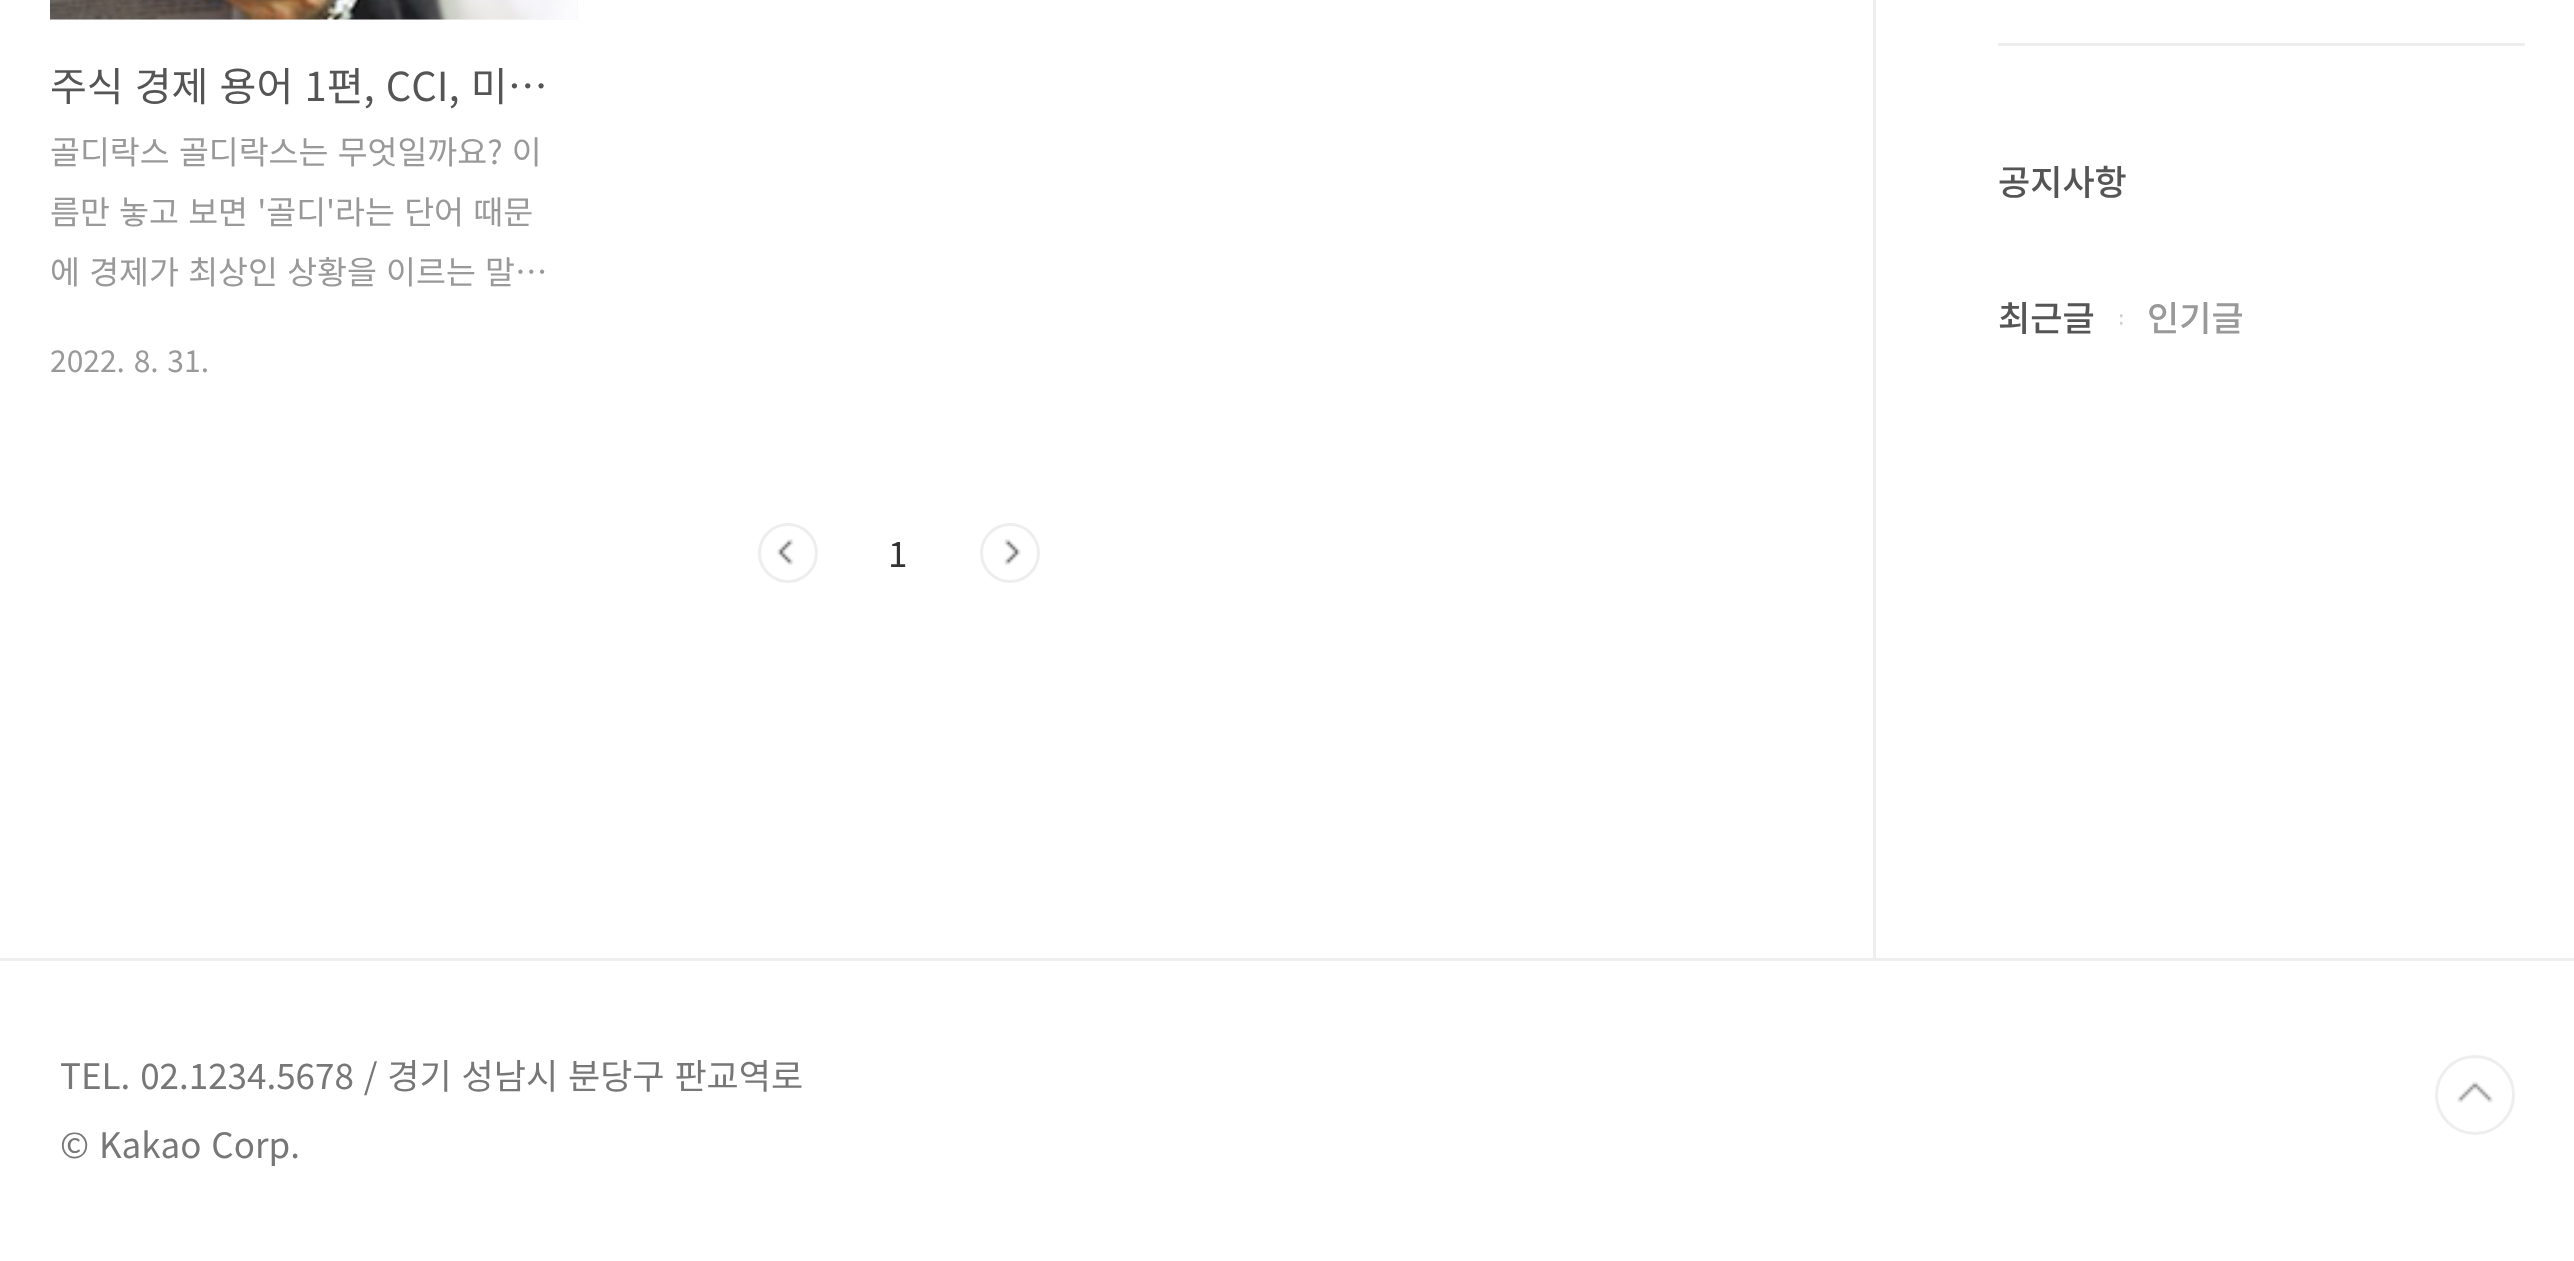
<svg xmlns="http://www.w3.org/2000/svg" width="2574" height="1261">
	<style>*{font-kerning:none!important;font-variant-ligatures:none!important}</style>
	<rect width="100%" height="100%" fill="#FFFFFF" />
	<rect x="50" y="0" width="528" height="20" fill="#F8F8F8" />
	<image x="50" y="0" width="527" height="20" href="assets/img1.png" />
	<text x="50" y="101" word-spacing="2.25" font-family="Noto Sans KR" font-size="40" fill="#555555">주식 경제 용어 1편, CCI, 미…</text>
	<g font-family="Noto Sans KR" font-size="32.5" fill="#999999">
		<text x="50" y="164" word-spacing="2">골디락스 골디락스는 무엇일까요? 이</text>
		<text x="50" y="224" word-spacing="2">름만 놓고 보면 '골디'라는 단어 때문</text>
		<text x="50" y="284" word-spacing="2">에 경제가 최상인 상황을 이르는 말…</text>
	</g>
	<text x="50" y="372" word-spacing="2" font-family="Noto Sans KR" font-size="30" fill="#999999">2022. 8. 31.</text>
	<image x="777" y="539" width="17" height="26" href="assets/img2.png" />
	<circle cx="788" cy="553" r="28.5" fill="none" stroke="#EEEEEE" stroke-width="3" />
	<text x="888" y="567" font-family="Noto Sans KR" font-size="35" fill="#333333">1</text>
	<image x="1004" y="539" width="17" height="26" href="assets/img3.png" />
	<circle cx="1010" cy="553" r="28.5" fill="none" stroke="#EEEEEE" stroke-width="3" />
	<rect x="1873" y="0" width="3" height="958" fill="#EEEEEE" />
	<rect x="1998" y="43" width="527" height="3" fill="#EEEEEE" />
	<g font-family="Noto Sans KR" font-size="35" font-weight="500" fill="#555555">
		<text x="1998" y="195">공지사항</text>
		<text x="1998" y="331">최근글</text>
	</g>
	<image x="2120" y="314" width="3" height="12" href="assets/img4.png" />
	<text x="2147" y="331" font-family="Noto Sans KR" font-size="35" font-weight="500" fill="#999999">인기글</text>
	<rect x="0" y="958" width="2574" height="3" fill="#EEEEEE" />
	<text x="60" y="1089" word-spacing="2" font-family="Noto Sans KR" font-size="35" fill="#777777">TEL. 02.1234.5678 / 경기 성남시 분당구 판교역로</text>
	<image x="2457" y="1081" width="36" height="22" href="assets/img5.png" />
	<circle cx="2475" cy="1095" r="38.5" fill="none" stroke="#EEEEEE" stroke-width="3" />
	<text x="60" y="1158" word-spacing="2" font-family="Noto Sans KR" font-size="35" fill="#777777">© Kakao Corp.</text>
</svg>
